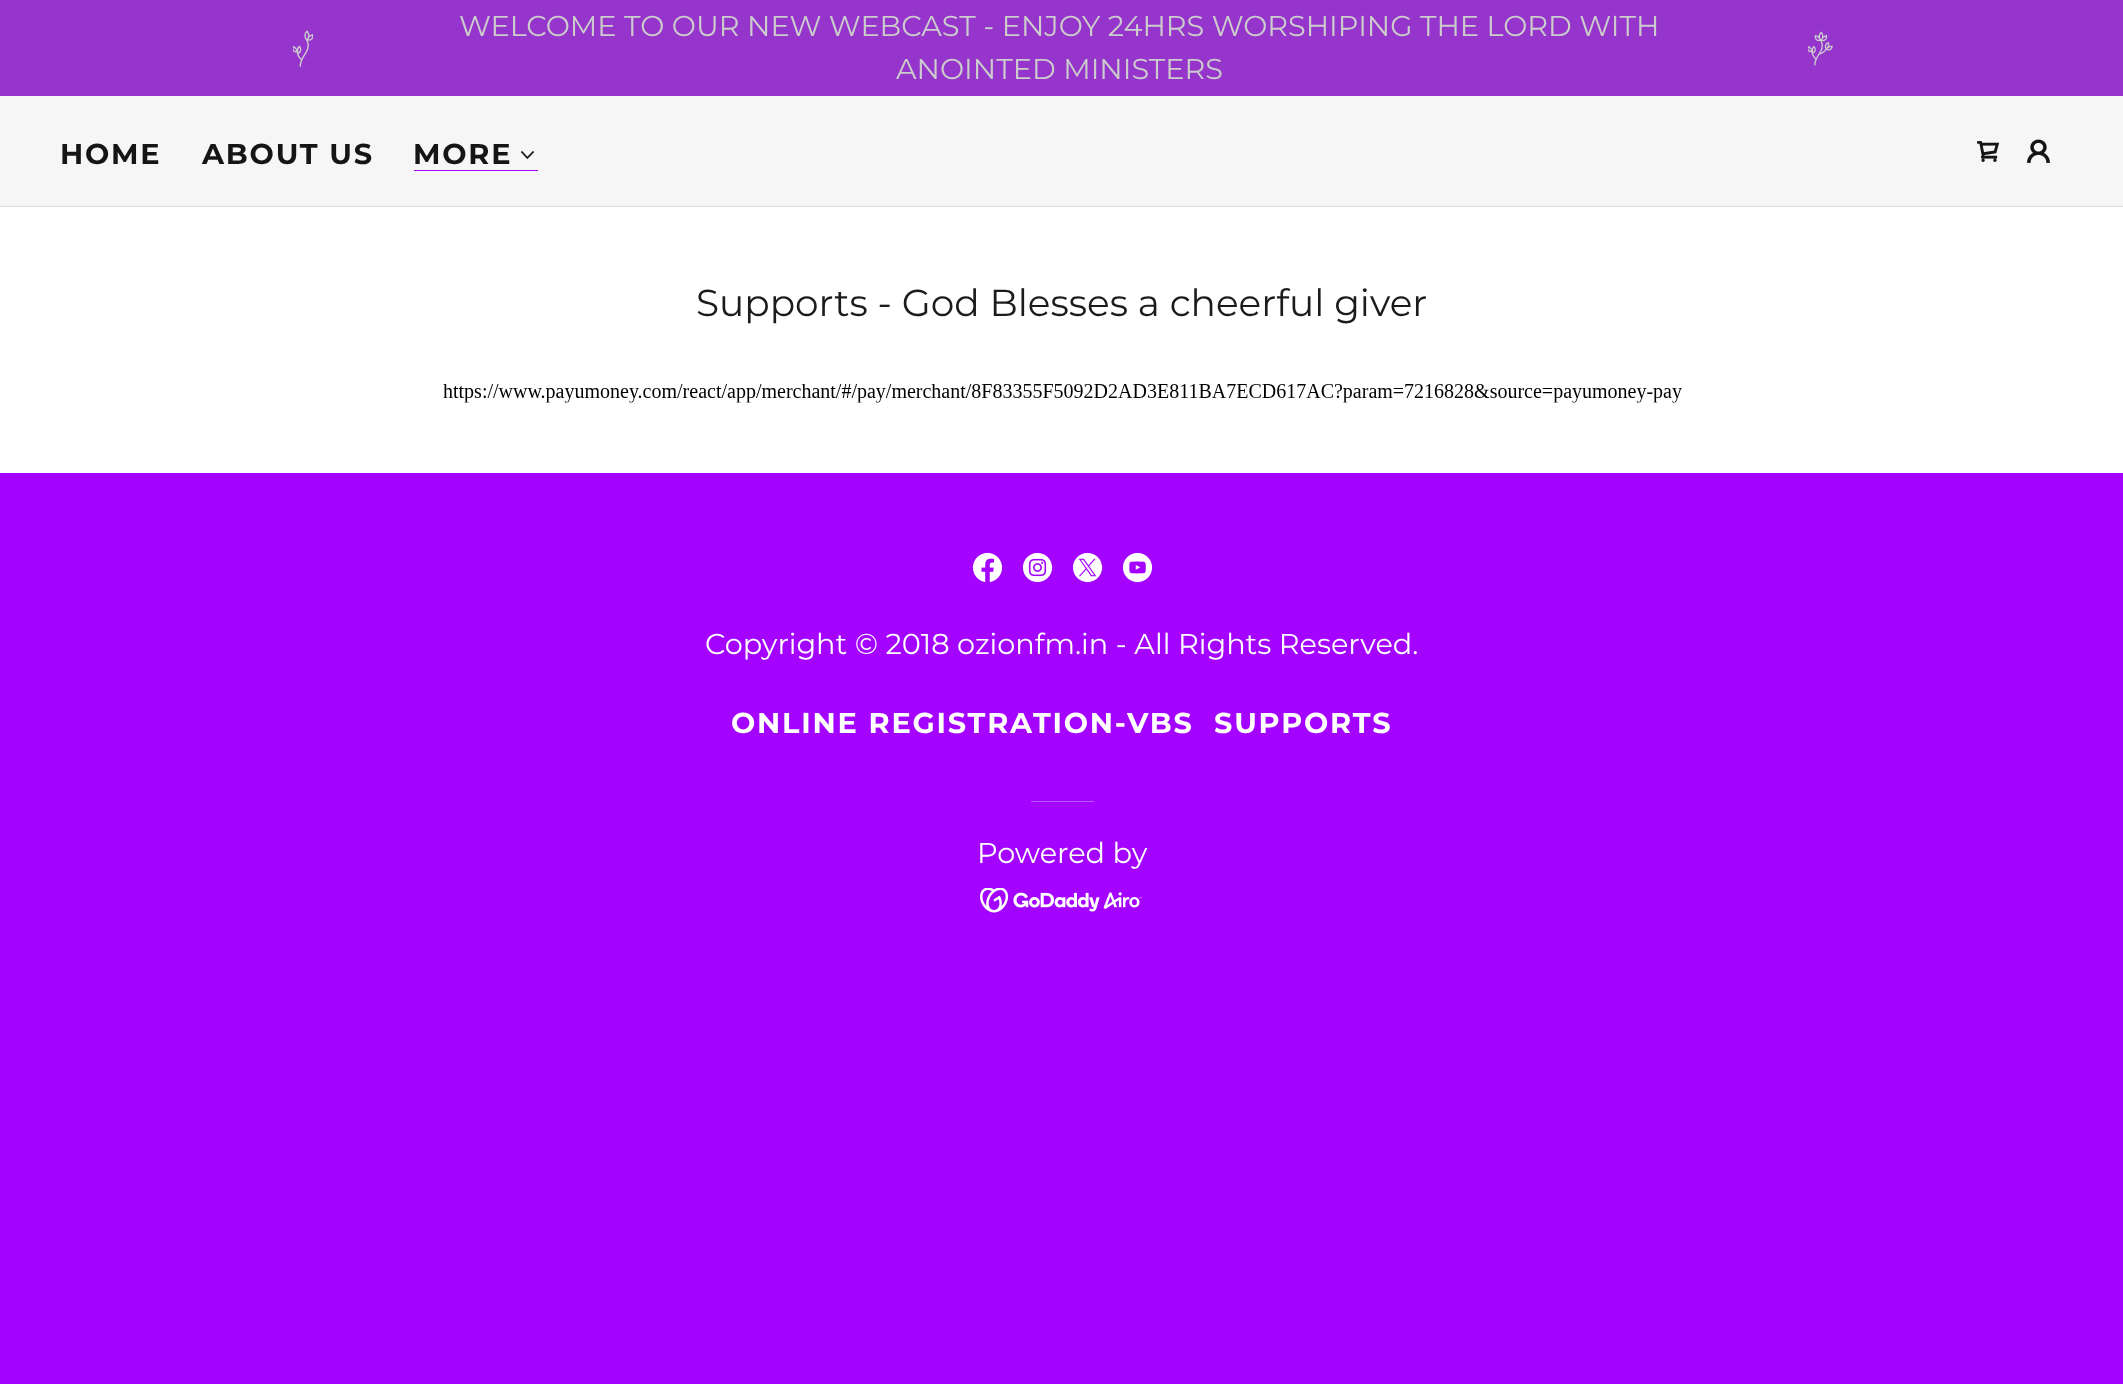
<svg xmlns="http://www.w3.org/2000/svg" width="2123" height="1384">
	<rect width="100%" height="100%" fill="#A303FF" />
	<rect x="0" y="207" width="2123" height="266" fill="#FFFFFF" />
	<rect x="0" y="0" width="2123" height="96" fill="#9535CC" />
	<image x="293" y="30" width="20" height="37" href="assets/img1.png" />
	<g font-family="Montserrat" font-size="28.75" fill="#CCCCCC">
		<text x="459" y="36">WELCOME TO OUR NEW WEBCAST - ENJOY 24HRS WORSHIPING THE LORD WITH</text>
		<text x="896" y="79">ANOINTED MINISTERS</text>
	</g>
	<image x="1808" y="31" width="25" height="35" href="assets/img2.png" />
	<rect x="0" y="96" width="2123" height="110" fill="#F6F6F6" />
	<g font-family="Montserrat" font-size="28.75" font-weight="700" letter-spacing="1.8" fill="#151515">
		<text x="60" y="164">HOME</text>
		<text x="202" y="164">ABOUT US</text>
	</g>
	<rect x="414" y="170" width="124" height="1" fill="#A303FF" />
	<text x="413" y="164" font-family="Montserrat" font-size="28.75" font-weight="700" letter-spacing="1.8" fill="#151515">MORE</text>
	<image x="520" y="151" width="15" height="9" href="assets/img3.png" />
	<image x="1977" y="141" width="23" height="21" href="assets/img4.png" />
	<image x="2027" y="139" width="23" height="24" href="assets/img5.png" />
	<rect x="0" y="206" width="2123" height="1" fill="#DADADA" />
	<text x="696" y="316" font-family="Montserrat" font-size="37.5" fill="#1B1B1B">Supports - God Blesses a cheerful giver</text>
	<image x="443" y="384" width="1239" height="19" href="assets/img6.png" />
	<image x="972" y="552" width="31" height="30" href="assets/img7.png" />
	<image x="1022" y="552" width="31" height="31" href="assets/img8.png" />
	<image x="1072" y="552" width="31" height="31" href="assets/img9.png" />
	<image x="1122" y="552" width="31" height="31" href="assets/img10.png" />
	<text x="705" y="654" font-family="Montserrat" font-size="28.75" fill="#FFFFFF">Copyright © 2018 ozionfm.in - All Rights Reserved.</text>
	<g font-family="Montserrat" font-size="28.75" font-weight="700" letter-spacing="1.8" fill="#FFFFFF">
		<text x="731" y="733">ONLINE REGISTRATION-VBS</text>
		<text x="1214" y="733">SUPPORTS</text>
	</g>
	<rect x="1031" y="801" width="63" height="1" fill="#AF5AFF" />
	<text x="977" y="863" font-family="Montserrat" font-size="28.75" fill="#FFFFFF">Powered by</text>
	<image x="980" y="888" width="162" height="25" href="assets/img11.png" />
</svg>
